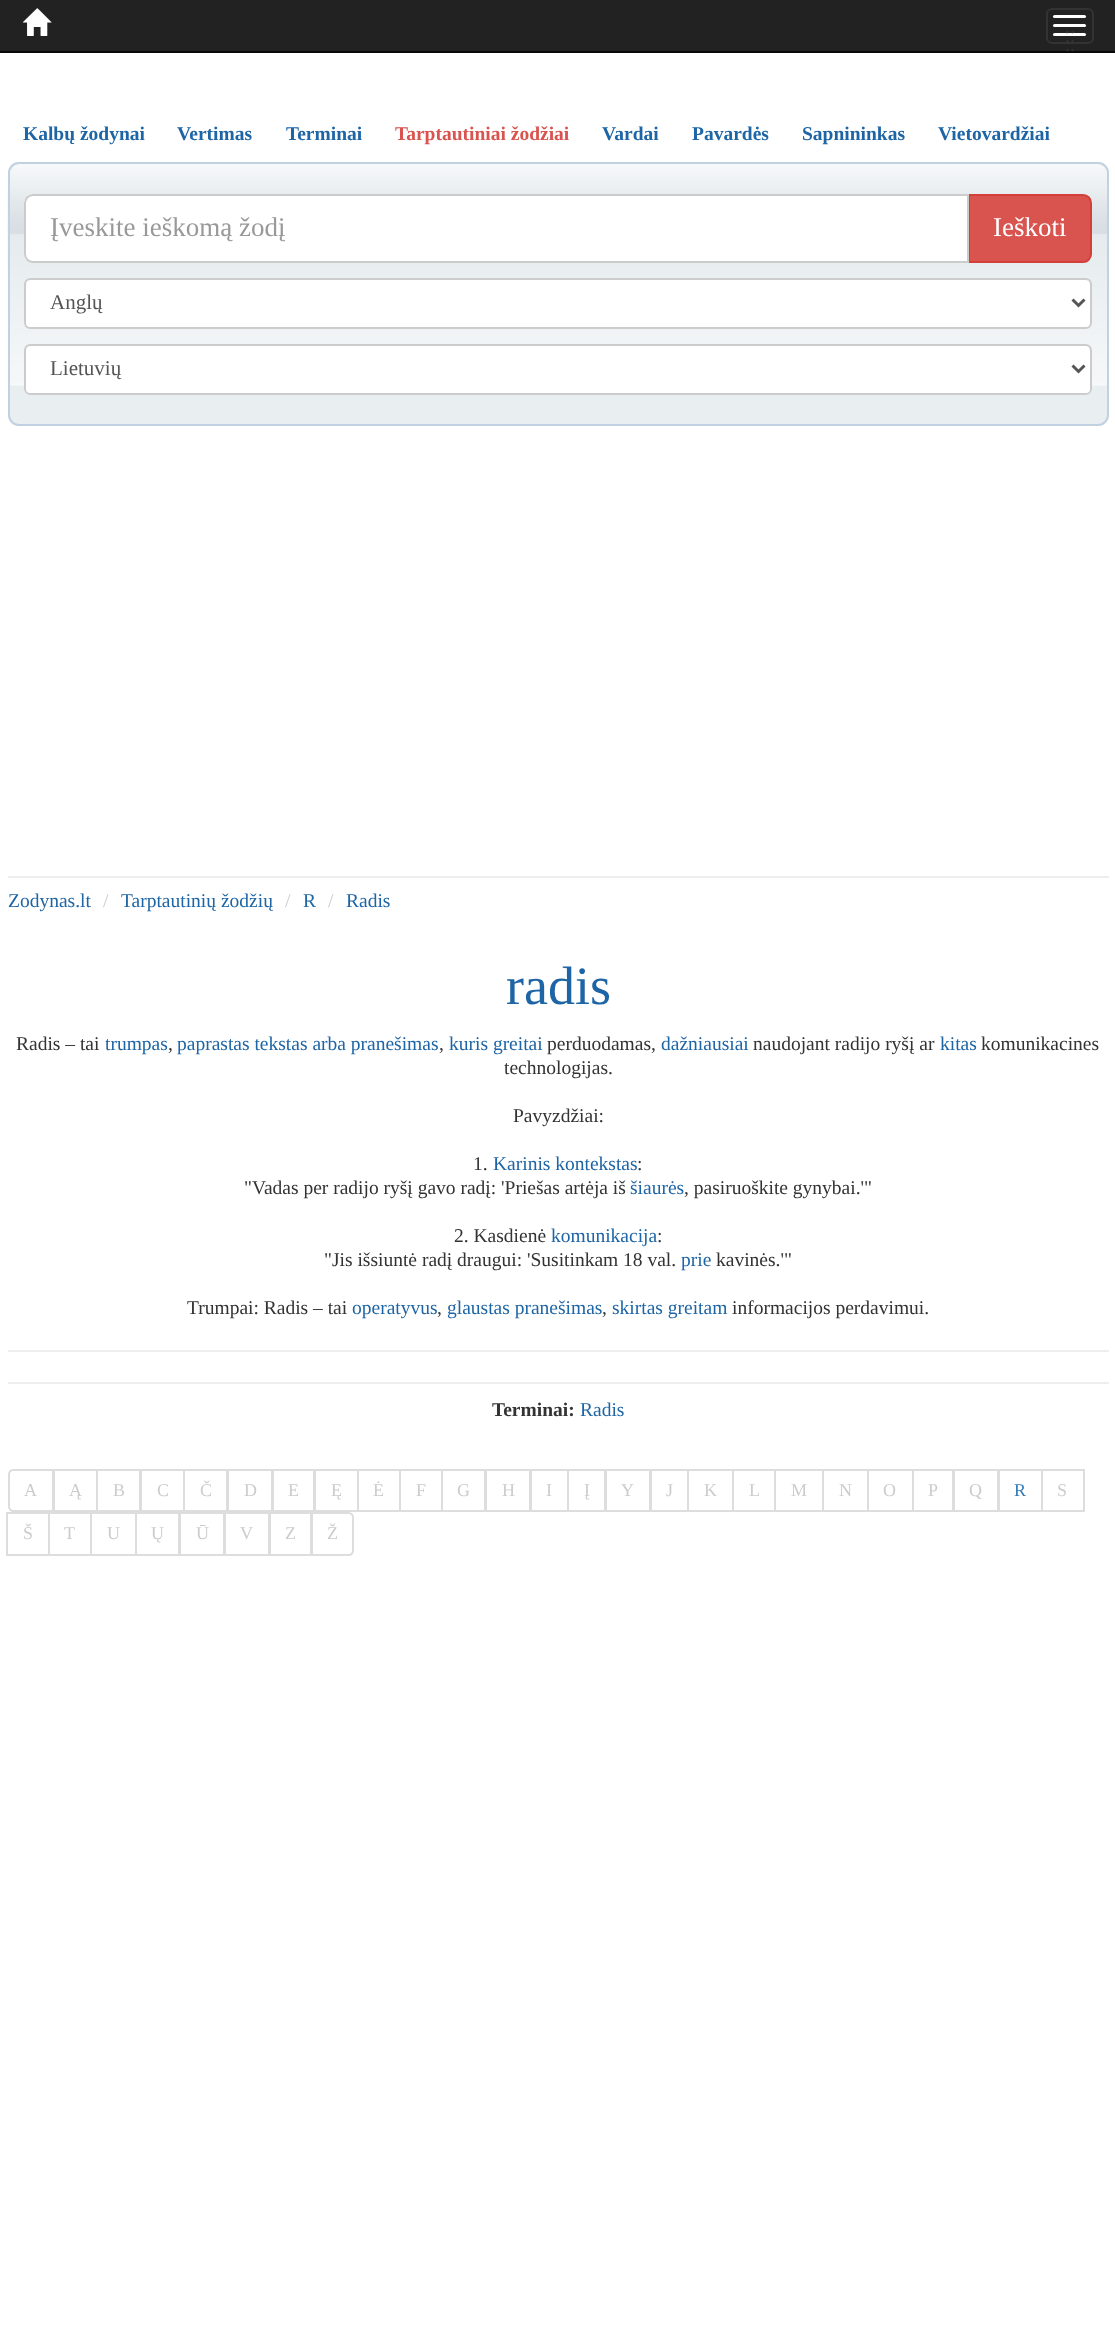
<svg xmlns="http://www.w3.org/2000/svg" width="1115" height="2338">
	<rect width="100%" height="100%" fill="#FFFFFF" />
	<rect x="0" y="0" width="1115" height="51" fill="#222222" />
	<rect x="0" y="51" width="1115" height="2" fill="#080808" />
	<image x="22" y="8" width="30" height="28" href="assets/img1.png" />
	<rect x="1047" y="9" width="46" height="34" rx="5" fill="none" stroke="#333333" stroke-width="2" />
	<rect x="1053" y="15" width="33" height="3" rx="1.5" fill="#FFFFFF" />
	<rect x="1053" y="33" width="33" height="3" rx="1.5" fill="#FFFFFF" />
	<text x="1065" y="33" font-family="Liberation Serif" font-size="19.5" fill="#333333">..</text>
	<rect x="1053" y="24" width="33" height="3" rx="1.5" fill="#FFFFFF" />
	<g font-family="Liberation Serif" font-size="19.5" fill="#333333">
		<text x="1065" y="42">..</text>
		<text x="1065" y="51">..</text>
	</g>
	<g font-family="Liberation Serif" font-size="19.5" font-weight="700" fill="#1E65A5">
		<text x="23" y="140">Kalbų žodynai</text>
		<text x="177" y="140">Vertimas</text>
		<text x="286" y="140">Terminai</text>
	</g>
	<text x="395" y="140" font-family="Liberation Serif" font-size="19.5" font-weight="700" fill="#D9534F">Tarptautiniai žodžiai</text>
	<g font-family="Liberation Serif" font-size="19.5" font-weight="700" fill="#1E65A5">
		<text x="602" y="140">Vardai</text>
		<text x="692" y="140">Pavardės</text>
		<text x="802" y="140">Sapnininkas</text>
		<text x="938" y="140">Vietovardžiai</text>
	</g>
	<rect x="8" y="162" width="1101" height="264" rx="11" fill="#E9EEF1" />
	<image x="7" y="163" width="1102" height="223" href="assets/img2.png" />
	<rect x="9" y="163" width="1099" height="262" rx="10" fill="none" stroke="#C1D1E1" stroke-width="2" />
	<path d="M969 195H1083C1087.5 195 1091 198.5 1091 203V254C1091 258.5 1087.5 262 1083 262H969Z" fill="#D9534F" stroke="#D43F3A" stroke-width="2" />
	<path d="M33 194H969V263H33C28 263 24 259 24 254V203C24 198 28 194 33 194Z" fill="#FFFFFF" />
	<path d="M33 196H968V195H34C29 195 26 199 26 204C26 200 29 196 33 196Z" fill="#ECECEC" />
	<path d="M33 195H968V262H33C28.5 262 25 258.5 25 254V203C25 198.5 28.5 195 33 195Z" fill="none" stroke="#CCCCCC" stroke-width="2" />
	<text x="50" y="236" font-family="Liberation Serif" font-size="27" fill="#999999">Įveskite ieškomą žodį</text>
	<text x="993" y="236" font-family="Liberation Serif" font-size="27" fill="#FFFFFF">Ieškoti</text>
	<rect x="24" y="278" width="1068" height="51" rx="6" fill="#FFFFFF" />
	<path d="M30 280H1086C1088 280 1090 283 1090 285V325C1091 324 1091 323 1091 322V284C1091 281 1089 279 1086 279H31C28 279 26 281 26 284V285C26 283 28 280 30 280Z" fill="#ECECEC" />
	<rect x="25" y="279" width="1066" height="49" rx="5" fill="none" stroke="#CCCCCC" stroke-width="2" />
	<path d="M1072.5 299.5L1078.5 305.5L1084.5 299.5" fill="none" stroke="#555555" stroke-width="3" />
	<text x="50" y="309" font-family="Liberation Serif" font-size="21" fill="#555555">Anglų</text>
	<rect x="24" y="344" width="1068" height="51" rx="6" fill="#FFFFFF" />
	<path d="M30 346H1086C1088 346 1090 349 1090 351V391C1091 390 1091 389 1091 388V350C1091 347 1089 345 1086 345H31C28 345 26 347 26 350V351C26 349 28 346 30 346Z" fill="#ECECEC" />
	<rect x="25" y="345" width="1066" height="49" rx="5" fill="none" stroke="#CCCCCC" stroke-width="2" />
	<path d="M1072.5 365.5L1078.5 371.5L1084.5 365.5" fill="none" stroke="#555555" stroke-width="3" />
	<text x="50" y="375" font-family="Liberation Serif" font-size="21" fill="#555555">Lietuvių</text>
	<rect x="8" y="876" width="1101" height="2" fill="#EEEEEE" />
	<text x="8" y="907" font-family="Liberation Serif" font-size="19.5" fill="#1E65A5">Zodynas.lt</text>
	<text x="103" y="907" font-family="Liberation Serif" font-size="19.5" fill="#CCCCCC">/</text>
	<text x="121" y="907" font-family="Liberation Serif" font-size="19.5" fill="#1E65A5">Tarptautinių žodžių</text>
	<text x="285" y="907" font-family="Liberation Serif" font-size="19.5" fill="#CCCCCC">/</text>
	<text x="303" y="907" font-family="Liberation Serif" font-size="19.5" fill="#1E65A5">R</text>
	<text x="328" y="907" font-family="Liberation Serif" font-size="19.5" fill="#CCCCCC">/</text>
	<text x="346" y="907" font-family="Liberation Serif" font-size="19.5" fill="#1E65A5">Radis</text>
	<text x="506" y="1004" font-family="Liberation Serif" font-size="54" fill="#1E65A5">radis</text>
	<text x="16" y="1050" font-family="Liberation Serif" font-size="19.5" fill="#333333">Radis – tai</text>
	<text x="105" y="1050" font-family="Liberation Serif" font-size="19.5" fill="#1E65A5">trumpas</text>
	<text x="168" y="1050" font-family="Liberation Serif" font-size="19.5" fill="#333333">,</text>
	<text x="177" y="1050" font-family="Liberation Serif" font-size="19.5" fill="#1E65A5">paprastas tekstas arba pranešimas</text>
	<text x="439" y="1050" font-family="Liberation Serif" font-size="19.5" fill="#333333">,</text>
	<text x="449" y="1050" font-family="Liberation Serif" font-size="19.5" fill="#1E65A5">kuris greitai</text>
	<text x="547" y="1050" font-family="Liberation Serif" font-size="19.5" fill="#333333">perduodamas,</text>
	<text x="661" y="1050" font-family="Liberation Serif" font-size="19.5" fill="#1E65A5">dažniausiai</text>
	<text x="753" y="1050" font-family="Liberation Serif" font-size="19.5" fill="#333333">naudojant radijo ryšį ar</text>
	<text x="940" y="1050" font-family="Liberation Serif" font-size="19.5" fill="#1E65A5">kitas</text>
	<g font-family="Liberation Serif" font-size="19.5" fill="#333333">
		<text x="981" y="1050">komunikacines</text>
		<text x="504" y="1074">technologijas.</text>
		<text x="513" y="1122">Pavyzdžiai:</text>
		<text x="473" y="1170">1.</text>
	</g>
	<text x="493" y="1170" font-family="Liberation Serif" font-size="19.5" fill="#1E65A5">Karinis kontekstas</text>
	<g font-family="Liberation Serif" font-size="19.5" fill="#333333">
		<text x="637" y="1170">:</text>
		<text x="244" y="1194">"Vadas per radijo ryšį gavo radį: 'Priešas artėja iš</text>
	</g>
	<text x="630" y="1194" font-family="Liberation Serif" font-size="19.5" fill="#1E65A5">šiaurės</text>
	<g font-family="Liberation Serif" font-size="19.5" fill="#333333">
		<text x="684" y="1194">, pasiruoškite gynybai.'"</text>
		<text x="454" y="1242">2. Kasdienė</text>
	</g>
	<text x="551" y="1242" font-family="Liberation Serif" font-size="19.5" fill="#1E65A5">komunikacija</text>
	<g font-family="Liberation Serif" font-size="19.5" fill="#333333">
		<text x="657" y="1242">:</text>
		<text x="324" y="1266">"Jis išsiuntė radį draugui: 'Susitinkam 18 val.</text>
	</g>
	<text x="681" y="1266" font-family="Liberation Serif" font-size="19.5" fill="#1E65A5">prie</text>
	<g font-family="Liberation Serif" font-size="19.5" fill="#333333">
		<text x="716" y="1266">kavinės.'"</text>
		<text x="187" y="1314">Trumpai: Radis – tai</text>
	</g>
	<text x="352" y="1314" font-family="Liberation Serif" font-size="19.5" fill="#1E65A5">operatyvus</text>
	<text x="437" y="1314" font-family="Liberation Serif" font-size="19.5" fill="#333333">,</text>
	<text x="447" y="1314" font-family="Liberation Serif" font-size="19.5" fill="#1E65A5">glaustas pranešimas</text>
	<text x="602" y="1314" font-family="Liberation Serif" font-size="19.5" fill="#333333">,</text>
	<text x="612" y="1314" font-family="Liberation Serif" font-size="19.5" fill="#1E65A5">skirtas greitam</text>
	<text x="732" y="1314" font-family="Liberation Serif" font-size="19.5" fill="#333333">informacijos perdavimui.</text>
	<rect x="8" y="1350" width="1101" height="2" fill="#EEEEEE" />
	<rect x="8" y="1382" width="1101" height="2" fill="#EEEEEE" />
	<text x="492" y="1416" font-family="Liberation Serif" font-size="19.5" font-weight="700" fill="#333333">Terminai:</text>
	<text x="580" y="1416" font-family="Liberation Serif" font-size="19.5" fill="#1E65A5">Radis</text>
	<path d="M13 1470H53V1511H13C11 1511 9 1509 9 1507V1474C9 1472 11 1470 13 1470Z" fill="none" stroke="#DDDDDD" stroke-width="2" />
	<text x="24" y="1496" font-family="Liberation Serif" font-size="18" fill="#CCCCCC">A</text>
	<rect x="54" y="1470" width="43" height="41" fill="none" stroke="#DDDDDD" stroke-width="2" />
	<text x="69" y="1496" font-family="Liberation Serif" font-size="18" fill="#CCCCCC">Ą</text>
	<rect x="97" y="1470" width="43" height="41" fill="none" stroke="#DDDDDD" stroke-width="2" />
	<text x="113" y="1496" font-family="Liberation Serif" font-size="18" fill="#CCCCCC">B</text>
	<rect x="141" y="1470" width="43" height="41" fill="none" stroke="#DDDDDD" stroke-width="2" />
	<text x="157" y="1496" font-family="Liberation Serif" font-size="18" fill="#CCCCCC">C</text>
	<rect x="184" y="1470" width="43" height="41" fill="none" stroke="#DDDDDD" stroke-width="2" />
	<text x="200" y="1496" font-family="Liberation Serif" font-size="18" fill="#CCCCCC">Č</text>
	<rect x="228" y="1470" width="44" height="41" fill="none" stroke="#DDDDDD" stroke-width="2" />
	<text x="244" y="1496" font-family="Liberation Serif" font-size="18" fill="#CCCCCC">D</text>
	<rect x="273" y="1470" width="41" height="41" fill="none" stroke="#DDDDDD" stroke-width="2" />
	<text x="288" y="1496" font-family="Liberation Serif" font-size="18" fill="#CCCCCC">E</text>
	<rect x="315" y="1470" width="43" height="41" fill="none" stroke="#DDDDDD" stroke-width="2" />
	<text x="331" y="1496" font-family="Liberation Serif" font-size="18" fill="#CCCCCC">Ę</text>
	<rect x="358" y="1470" width="42" height="41" fill="none" stroke="#DDDDDD" stroke-width="2" />
	<text x="373" y="1496" font-family="Liberation Serif" font-size="18" fill="#CCCCCC">Ė</text>
	<rect x="400" y="1470" width="42" height="41" fill="none" stroke="#DDDDDD" stroke-width="2" />
	<text x="416" y="1496" font-family="Liberation Serif" font-size="18" fill="#CCCCCC">F</text>
	<rect x="442" y="1470" width="43" height="41" fill="none" stroke="#DDDDDD" stroke-width="2" />
	<text x="457" y="1496" font-family="Liberation Serif" font-size="18" fill="#CCCCCC">G</text>
	<rect x="486" y="1470" width="44" height="41" fill="none" stroke="#DDDDDD" stroke-width="2" />
	<text x="502" y="1496" font-family="Liberation Serif" font-size="18" fill="#CCCCCC">H</text>
	<rect x="531" y="1470" width="37" height="41" fill="none" stroke="#DDDDDD" stroke-width="2" />
	<text x="546" y="1496" font-family="Liberation Serif" font-size="18" fill="#CCCCCC">I</text>
	<rect x="568" y="1470" width="37" height="41" fill="none" stroke="#DDDDDD" stroke-width="2" />
	<text x="584" y="1496" font-family="Liberation Serif" font-size="18" fill="#CCCCCC">Į</text>
	<rect x="606" y="1470" width="44" height="41" fill="none" stroke="#DDDDDD" stroke-width="2" />
	<text x="621" y="1496" font-family="Liberation Serif" font-size="18" fill="#CCCCCC">Y</text>
	<rect x="651" y="1470" width="37" height="41" fill="none" stroke="#DDDDDD" stroke-width="2" />
	<text x="666" y="1496" font-family="Liberation Serif" font-size="18" fill="#CCCCCC">J</text>
	<rect x="688" y="1470" width="45" height="41" fill="none" stroke="#DDDDDD" stroke-width="2" />
	<text x="704" y="1496" font-family="Liberation Serif" font-size="18" fill="#CCCCCC">K</text>
	<rect x="733" y="1470" width="42" height="41" fill="none" stroke="#DDDDDD" stroke-width="2" />
	<text x="749" y="1496" font-family="Liberation Serif" font-size="18" fill="#CCCCCC">L</text>
	<rect x="775" y="1470" width="48" height="41" fill="none" stroke="#DDDDDD" stroke-width="2" />
	<text x="791" y="1496" font-family="Liberation Serif" font-size="18" fill="#CCCCCC">M</text>
	<rect x="823" y="1470" width="45" height="41" fill="none" stroke="#DDDDDD" stroke-width="2" />
	<text x="839" y="1496" font-family="Liberation Serif" font-size="18" fill="#CCCCCC">N</text>
	<rect x="868" y="1470" width="45" height="41" fill="none" stroke="#DDDDDD" stroke-width="2" />
	<text x="883" y="1496" font-family="Liberation Serif" font-size="18" fill="#CCCCCC">O</text>
	<rect x="913" y="1470" width="40" height="41" fill="none" stroke="#DDDDDD" stroke-width="2" />
	<text x="928" y="1496" font-family="Liberation Serif" font-size="18" fill="#CCCCCC">P</text>
	<rect x="954" y="1470" width="44" height="41" fill="none" stroke="#DDDDDD" stroke-width="2" />
	<text x="969" y="1496" font-family="Liberation Serif" font-size="18" fill="#CCCCCC">Q</text>
	<rect x="999" y="1470" width="43" height="41" fill="none" stroke="#DDDDDD" stroke-width="2" />
	<text x="1014" y="1496" font-family="Liberation Serif" font-size="18" fill="#337AB7">R</text>
	<rect x="1042" y="1470" width="42" height="41" fill="none" stroke="#DDDDDD" stroke-width="2" />
	<text x="1057" y="1496" font-family="Liberation Serif" font-size="18" fill="#CCCCCC">S</text>
	<rect x="7" y="1513" width="42" height="42" fill="none" stroke="#DDDDDD" stroke-width="2" />
	<text x="23" y="1539" font-family="Liberation Serif" font-size="18" fill="#CCCCCC">Š</text>
	<rect x="49" y="1513" width="42" height="42" fill="none" stroke="#DDDDDD" stroke-width="2" />
	<text x="64" y="1539" font-family="Liberation Serif" font-size="18" fill="#CCCCCC">T</text>
	<rect x="91" y="1513" width="45" height="42" fill="none" stroke="#DDDDDD" stroke-width="2" />
	<text x="107" y="1539" font-family="Liberation Serif" font-size="18" fill="#CCCCCC">U</text>
	<rect x="136" y="1513" width="43" height="42" fill="none" stroke="#DDDDDD" stroke-width="2" />
	<text x="151" y="1539" font-family="Liberation Serif" font-size="18" fill="#CCCCCC">Ų</text>
	<rect x="180" y="1513" width="44" height="42" fill="none" stroke="#DDDDDD" stroke-width="2" />
	<text x="196" y="1539" font-family="Liberation Serif" font-size="18" fill="#CCCCCC">Ū</text>
	<rect x="225" y="1513" width="44" height="42" fill="none" stroke="#DDDDDD" stroke-width="2" />
	<text x="240" y="1539" font-family="Liberation Serif" font-size="18" fill="#CCCCCC">V</text>
	<rect x="270" y="1513" width="41" height="42" fill="none" stroke="#DDDDDD" stroke-width="2" />
	<text x="285" y="1539" font-family="Liberation Serif" font-size="18" fill="#CCCCCC">Z</text>
	<path d="M312 1513H349C351 1513 353 1515 353 1517V1551C353 1553 351 1555 349 1555H312Z" fill="#FFFFFF" stroke="#DDDDDD" stroke-width="2" />
	<text x="327" y="1539" font-family="Liberation Serif" font-size="18" fill="#CCCCCC">Ž</text>
</svg>
